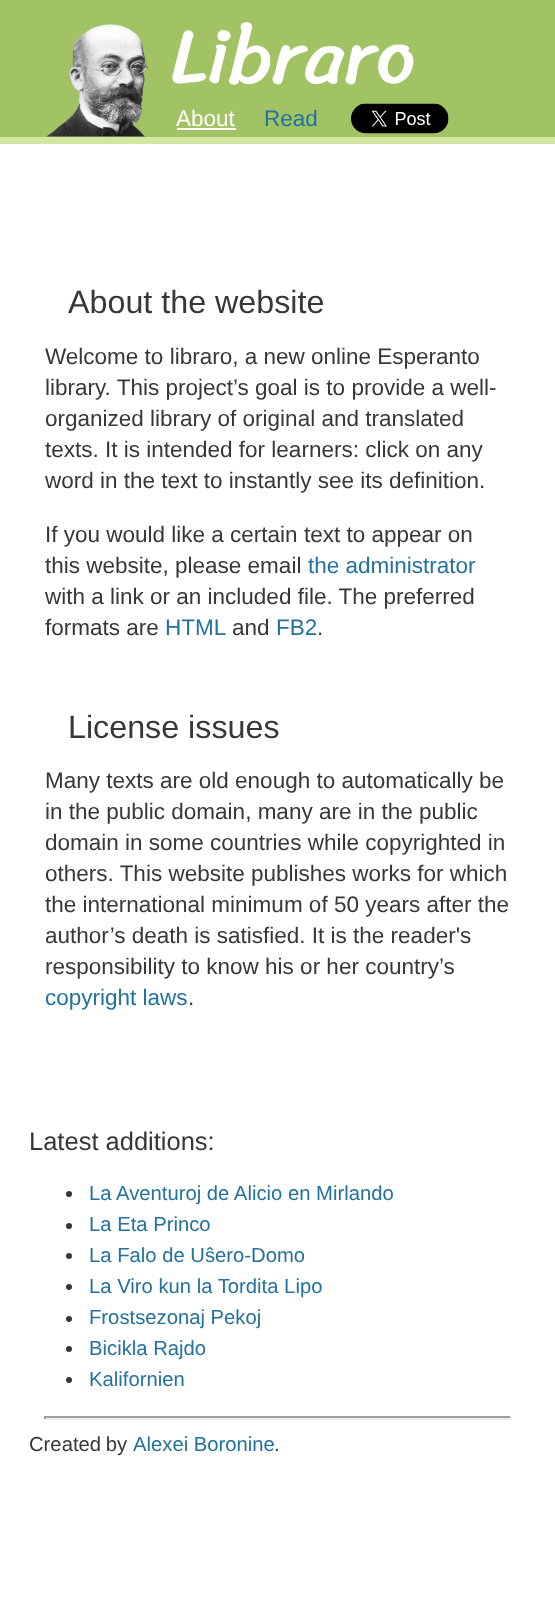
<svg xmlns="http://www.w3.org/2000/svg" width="555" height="1616">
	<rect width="100%" height="100%" fill="#FFFFFF" />
	<rect x="0" y="0" width="555" height="137" fill="#A1C364" />
	<rect x="0" y="137" width="555" height="7" fill="#D2E8A2" />
	<image x="46" y="24" width="103" height="113" href="assets/img1.png" />
	<image x="172" y="22" width="242" height="63" href="assets/img2.png" />
	<text x="176" y="126" font-family="Liberation Sans" font-size="22.5" fill="#FFFFFF">About</text>
	<rect x="177" y="128" width="59" height="2" fill="#FFFFFF" />
	<text x="264" y="126" font-family="Liberation Sans" font-size="22.5" fill="#23729D">Read</text>
	<image x="351" y="103" width="98" height="31" href="assets/img3.png" />
	<text x="68" y="313" font-family="Liberation Sans" font-size="32.25" fill="#373737">About the website</text>
	<g font-family="Liberation Sans" font-size="22.5" fill="#373737">
		<text x="45" y="364">Welcome to libraro, a new online Esperanto</text>
		<text x="45" y="395">library. This project’s goal is to provide a well-</text>
		<text x="45" y="426">organized library of original and translated</text>
		<text x="45" y="457">texts. It is intended for learners: click on any</text>
		<text x="45" y="488">word in the text to instantly see its definition.</text>
		<text x="45" y="542">If you would like a certain text to appear on</text>
		<text x="45" y="573">this website, please email</text>
	</g>
	<text x="308" y="573" font-family="Liberation Sans" font-size="22.5" fill="#23729D">the administrator</text>
	<g font-family="Liberation Sans" font-size="22.5" fill="#373737">
		<text x="45" y="604">with a link or an included file. The preferred</text>
		<text x="45" y="635">formats are</text>
	</g>
	<text x="165" y="635" font-family="Liberation Sans" font-size="22.5" fill="#23729D">HTML</text>
	<text x="232" y="635" font-family="Liberation Sans" font-size="22.5" fill="#373737">and</text>
	<text x="276" y="635" font-family="Liberation Sans" font-size="22.5" fill="#23729D">FB2</text>
	<text x="317" y="635" font-family="Liberation Sans" font-size="22.5" fill="#373737">.</text>
	<text x="68" y="738" font-family="Liberation Sans" font-size="32.25" fill="#373737">License issues</text>
	<g font-family="Liberation Sans" font-size="22.5" fill="#373737">
		<text x="45" y="788">Many texts are old enough to automatically be</text>
		<text x="45" y="819">in the public domain, many are in the public</text>
		<text x="45" y="850">domain in some countries while copyrighted in</text>
		<text x="45" y="881">others. This website publishes works for which</text>
		<text x="45" y="912">the international minimum of 50 years after the</text>
		<text x="45" y="943">author’s death is satisfied. It is the reader's</text>
		<text x="45" y="974">responsibility to know his or her country’s</text>
	</g>
	<text x="45" y="1005" font-family="Liberation Sans" font-size="22.5" fill="#23729D">copyright laws</text>
	<text x="188" y="1005" font-family="Liberation Sans" font-size="22.5" fill="#373737">.</text>
	<text x="29" y="1150" font-family="Liberation Sans" font-size="25.5" fill="#373737">Latest additions:</text>
	<circle cx="69" cy="1194" r="3" fill="#373737" />
	<text x="89" y="1200" font-family="Liberation Sans" font-size="20.25" fill="#23729D">La Aventuroj de Alicio en Mirlando</text>
	<circle cx="69" cy="1226" r="3" fill="#373737" />
	<text x="89" y="1231" font-family="Liberation Sans" font-size="20.25" fill="#23729D">La Eta Princo</text>
	<circle cx="69" cy="1256" r="3" fill="#373737" />
	<text x="89" y="1262" font-family="Liberation Sans" font-size="20.25" fill="#23729D">La Falo de Uŝero-Domo</text>
	<circle cx="69" cy="1287" r="3" fill="#373737" />
	<text x="89" y="1293" font-family="Liberation Sans" font-size="20.25" fill="#23729D">La Viro kun la Tordita Lipo</text>
	<circle cx="69" cy="1319" r="3" fill="#373737" />
	<text x="89" y="1324" font-family="Liberation Sans" font-size="20.25" fill="#23729D">Frostsezonaj Pekoj</text>
	<circle cx="69" cy="1349" r="3" fill="#373737" />
	<text x="89" y="1355" font-family="Liberation Sans" font-size="20.25" fill="#23729D">Bicikla Rajdo</text>
	<circle cx="69" cy="1380" r="3" fill="#373737" />
	<text x="89" y="1386" font-family="Liberation Sans" font-size="20.25" fill="#23729D">Kalifornien</text>
	<rect x="44" y="1416" width="468" height="2" fill="#9F9F9F" />
	<rect x="510" y="1416" width="2" height="3" fill="#EEEEEE" />
	<rect x="44" y="1418" width="468" height="2" fill="#EEEEEE" />
	<rect x="44" y="1416" width="2" height="3" fill="#9F9F9F" />
	<text x="29" y="1451" word-spacing="-1" font-family="Liberation Sans" font-size="20.25" fill="#373737">Created by</text>
	<text x="133" y="1451" font-family="Liberation Sans" font-size="20.25" fill="#23729D">Alexei Boronine</text>
	<text x="274" y="1451" font-family="Liberation Sans" font-size="20.25" fill="#373737">.</text>
</svg>
